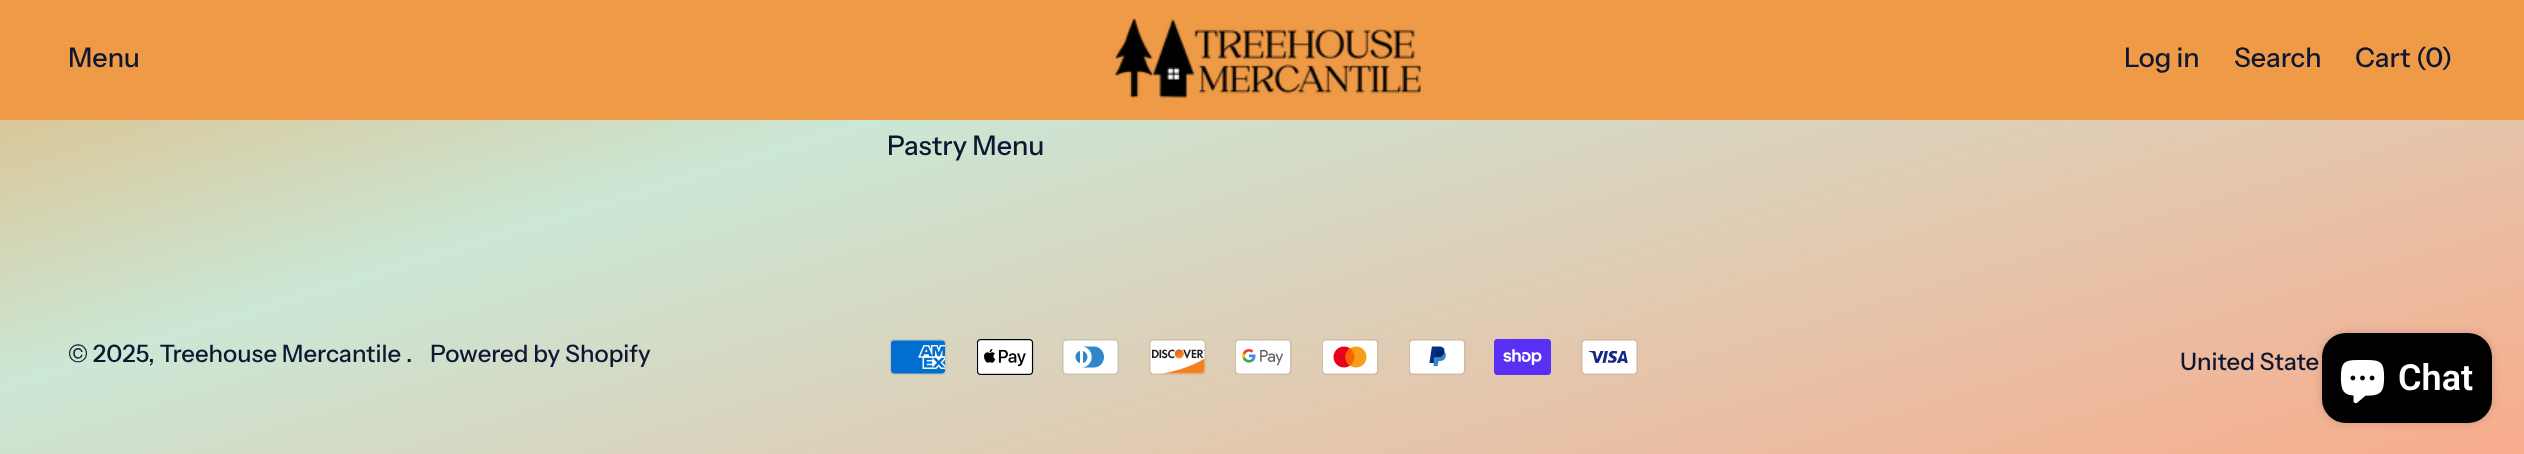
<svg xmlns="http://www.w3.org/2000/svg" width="2524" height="454">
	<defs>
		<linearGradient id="g1" gradientUnits="userSpaceOnUse" x1="1039" y1="-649" x2="1485" y2="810"><stop offset="0.05" stop-color="#EF9A46" /><stop offset="0.45" stop-color="#CBE7D5" /><stop offset="1" stop-color="#FAA989" /></linearGradient>
	</defs>
	<rect width="100%" height="100%" fill="#FFFFFF" />
	<rect x="0" y="0" width="2524" height="120" fill="#EF9A46" />
	<text x="68" y="67" font-family="Instrument Sans" font-size="27" font-weight="500" fill="#0E1732">Menu</text>
	<image x="1114" y="18" width="307" height="80" href="assets/img1.png" />
	<g font-family="Instrument Sans" font-size="27" font-weight="500" fill="#0E1732">
		<text x="2124" y="67">Log in</text>
		<text x="2234" y="67">Search</text>
		<text x="2355" y="67">Cart (0)</text>
	</g>
	<rect x="0" y="120" width="2524" height="334" fill="url(#g1)" />
	<text x="887" y="155" font-family="Instrument Sans" font-size="27" font-weight="500" fill="#0E1732">Pastry Menu</text>
	<g font-family="Instrument Sans" font-size="24" font-weight="500" fill="#0E1732">
		<text x="68" y="362">© 2025, Treehouse Mercantile</text>
		<text x="406" y="362">.</text>
		<text x="430" y="362">Powered by Shopify</text>
	</g>
	<image x="890" y="339" width="57" height="36" href="assets/img2.png" />
	<image x="977" y="339" width="57" height="36" href="assets/img3.png" />
	<image x="1062" y="339" width="57" height="36" href="assets/img4.png" />
	<image x="1149" y="339" width="57" height="36" href="assets/img5.png" />
	<image x="1235" y="339" width="57" height="36" href="assets/img6.png" />
	<image x="1322" y="339" width="57" height="36" href="assets/img7.png" />
	<image x="1409" y="339" width="57" height="36" href="assets/img8.png" />
	<image x="1494" y="339" width="57" height="36" href="assets/img9.png" />
	<image x="1581" y="339" width="57" height="36" href="assets/img10.png" />
	<text x="2180" y="370" font-family="Instrument Sans" font-size="24" font-weight="500" fill="#0E1732">United State</text>
	<rect x="2322" y="333" width="170" height="90" rx="24" fill="#000000" fill-opacity="0.15" filter="blur(4px)" />
	<rect x="2322" y="333" width="170" height="90" rx="24" fill="#000000" />
	<image x="2340" y="360" width="45" height="44" href="assets/img11.png" />
	<text x="2398" y="390" font-family="Roboto" font-size="36" font-weight="600" fill="#FFFFFF">Chat</text>
</svg>
